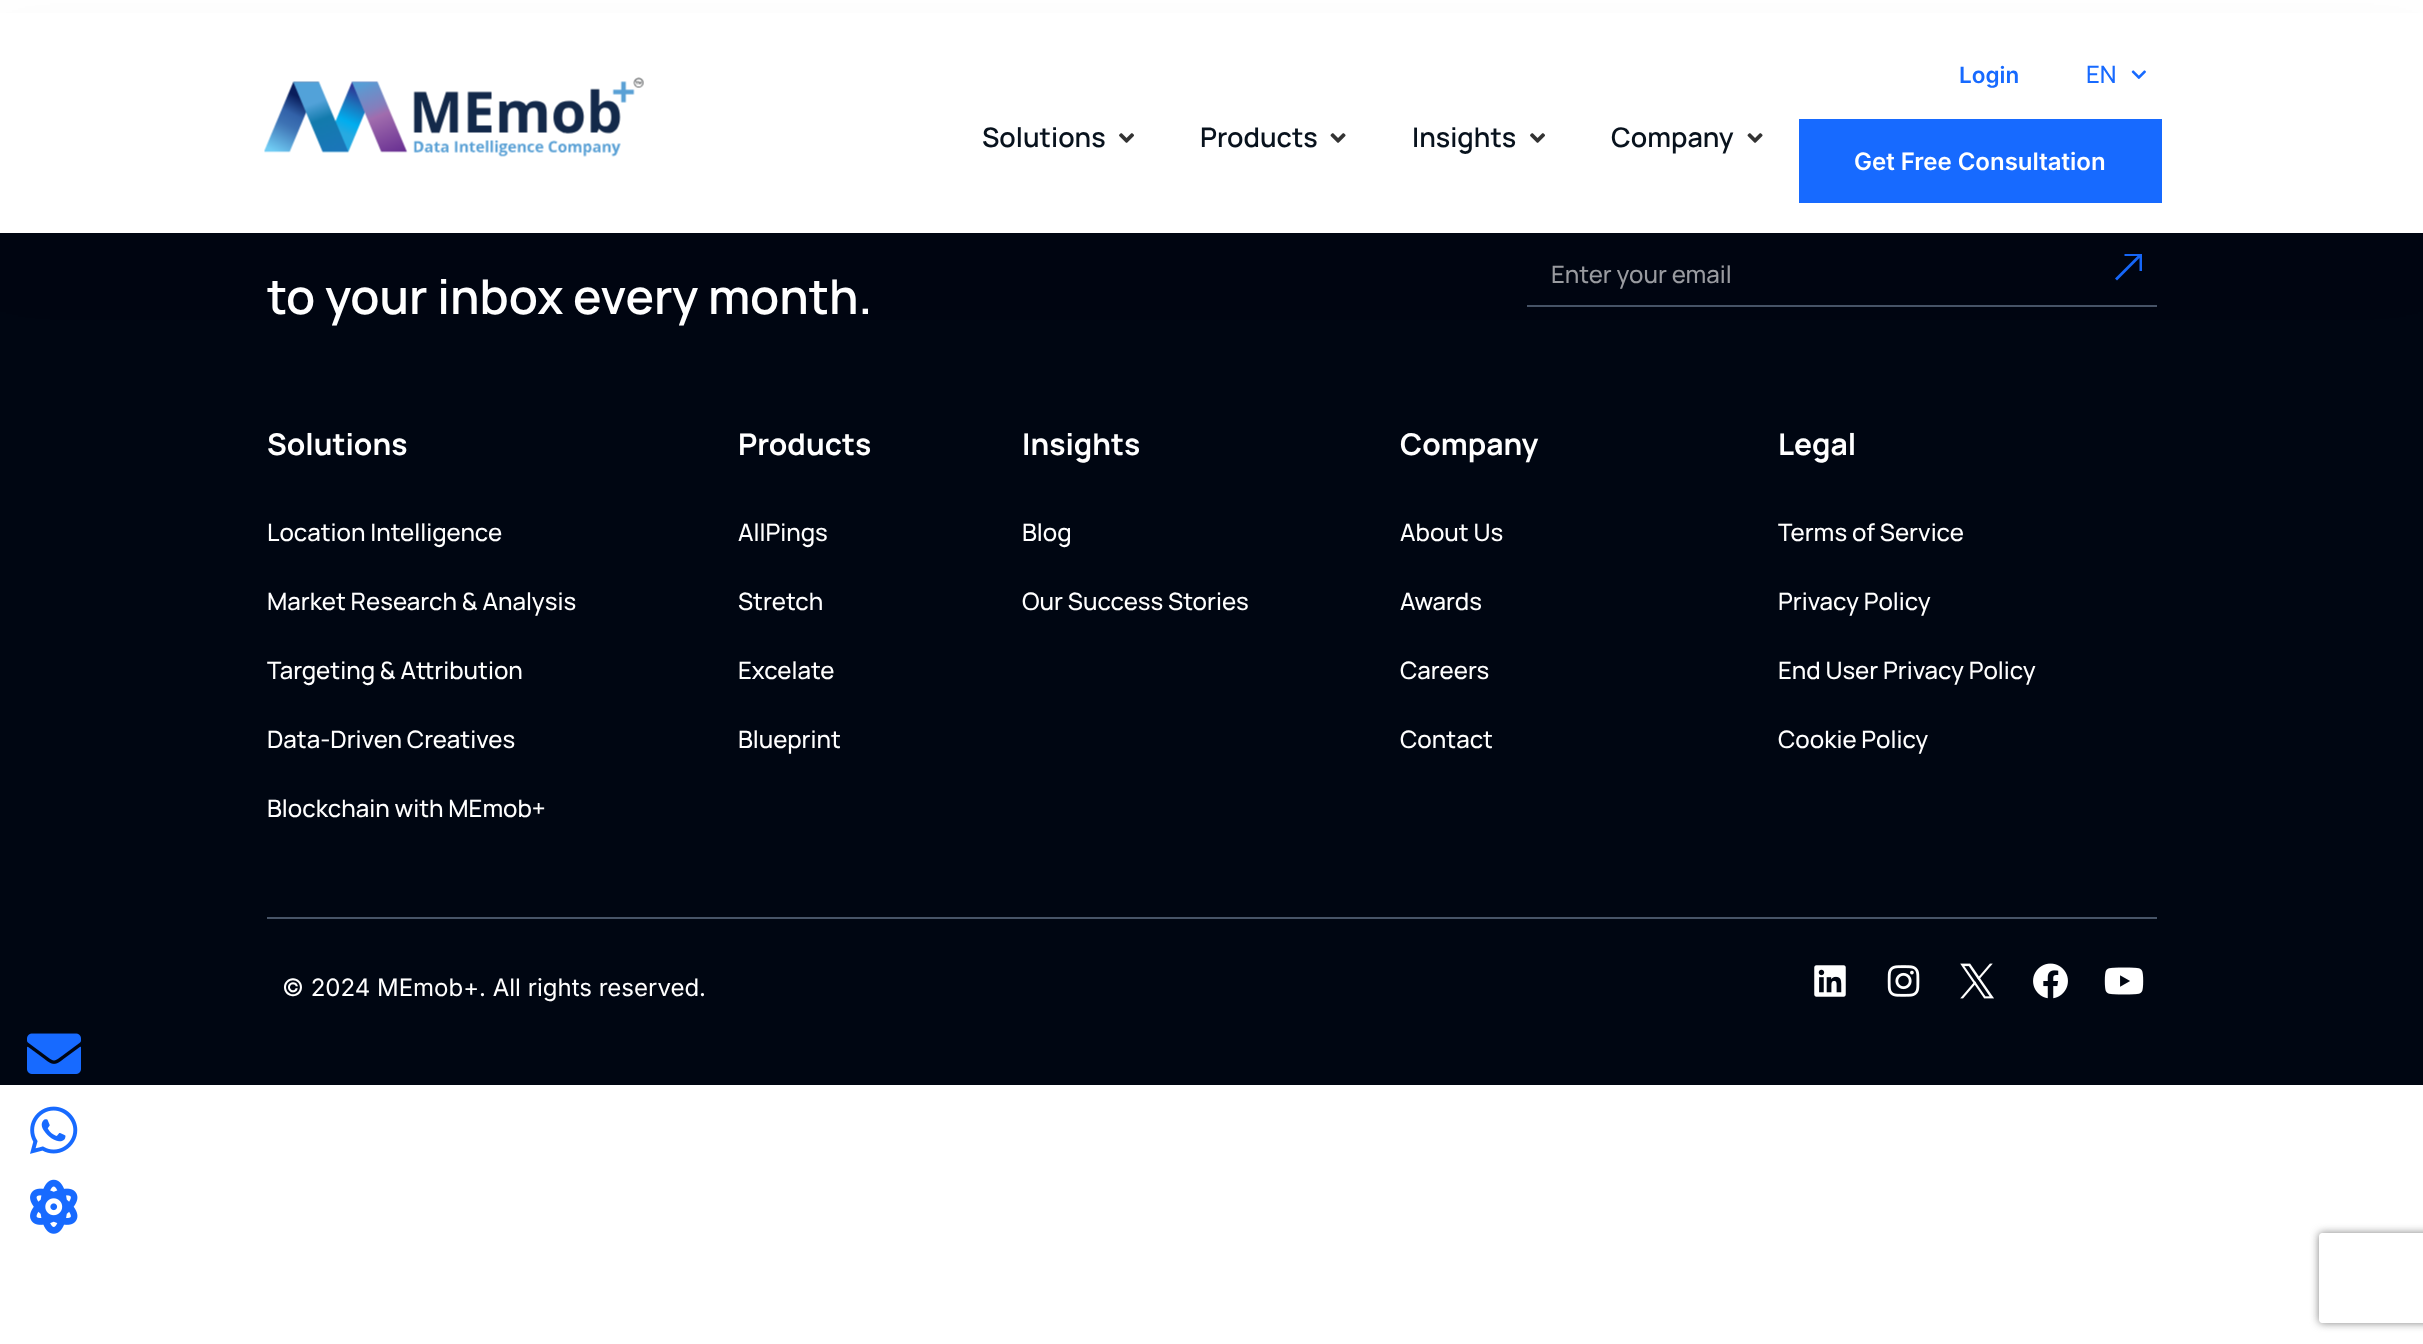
<svg xmlns="http://www.w3.org/2000/svg" width="2423" height="1344">
	<defs>
		<clipPath id="clip1"><rect x="2115" y="254" width="27" height="27" /></clipPath>
		<clipPath id="clip2"><path d="M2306 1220H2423V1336H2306ZM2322 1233H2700C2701.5 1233 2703 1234.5 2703 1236V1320C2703 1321.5 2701.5 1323 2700 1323H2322C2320.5 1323 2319 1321.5 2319 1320V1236C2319 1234.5 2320.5 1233 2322 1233Z" clip-rule="evenodd" /></clipPath>
	</defs>
	<rect width="100%" height="100%" fill="#FFFFFF" />
	<rect x="0" y="233" width="2423" height="852" fill="#000612" />
	<rect x="1527" y="305" width="630" height="2" fill="#475467" />
	<g clip-path="url(#clip1)">
		<path d="M2137.5 256H2124.5V253.5H2142V271H2139.5V258L2117 280.5L2115 278.5Z" fill="#176AFF" />
	</g>
	<rect x="0" y="38" width="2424" height="232" fill="#000000" fill-opacity="0.05" filter="blur(30px)" />
	<rect x="0" y="13" width="2423" height="220" fill="#FFFFFF" />
	<image x="264" y="77" width="380" height="80" href="assets/img1.png" />
	<text x="1959" y="83" font-family="Inter" font-size="22.5" font-weight="600" fill="#176AFF">Login</text>
	<text x="2086" y="83" font-family="Manrope" font-size="24" font-weight="500" fill="#176AFF">EN</text>
	<image x="2131" y="70" width="15" height="9" href="assets/img2.png" />
	<text x="982" y="147" font-family="Manrope" font-size="27" font-weight="600" fill="#08121D">Solutions</text>
	<image x="1119" y="133" width="15" height="10" href="assets/img3.png" />
	<text x="1200" y="147" font-family="Manrope" font-size="27" font-weight="600" fill="#08121D">Products</text>
	<image x="1330" y="133" width="16" height="10" href="assets/img4.png" />
	<text x="1412" y="147" font-family="Manrope" font-size="27" font-weight="600" fill="#08121D">Insights</text>
	<image x="1530" y="133" width="15" height="10" href="assets/img3.png" />
	<text x="1611" y="147" font-family="Manrope" font-size="27" font-weight="600" fill="#08121D">Company</text>
	<image x="1747" y="133" width="16" height="10" href="assets/img4.png" />
	<rect x="1799" y="119" width="363" height="84" fill="#176AFF" />
	<text x="1854" y="170" font-family="Inter" font-size="24" font-weight="600" fill="#FFFFFF">Get Free Consultation</text>
	<text x="267" y="314" font-family="Manrope" font-size="48" font-weight="600" fill="#FFFFFF">to your inbox every month.</text>
	<text x="1551" y="283" font-family="Manrope" font-size="24" font-weight="500" fill="#999BA0">Enter your email</text>
	<text x="267" y="455" font-family="Manrope" font-size="30" font-weight="700" fill="#FFFFFF">Solutions</text>
	<g font-family="Manrope" font-size="24" font-weight="500" fill="#FFFFFF">
		<text x="267" y="541">Location Intelligence</text>
		<text x="267" y="610">Market Research &amp; Analysis</text>
		<text x="267" y="679">Targeting &amp; Attribution</text>
		<text x="267" y="748">Data-Driven Creatives</text>
		<text x="267" y="817">Blockchain with MEmob+</text>
	</g>
	<text x="738" y="455" font-family="Manrope" font-size="30" font-weight="700" fill="#FFFFFF">Products</text>
	<g font-family="Manrope" font-size="24" font-weight="500" fill="#FFFFFF">
		<text x="738" y="541">AllPings</text>
		<text x="738" y="610">Stretch</text>
		<text x="738" y="679">Excelate</text>
		<text x="738" y="748">Blueprint</text>
	</g>
	<text x="1022" y="455" font-family="Manrope" font-size="30" font-weight="700" fill="#FFFFFF">Insights</text>
	<g font-family="Manrope" font-size="24" font-weight="500" fill="#FFFFFF">
		<text x="1022" y="541">Blog</text>
		<text x="1022" y="610">Our Success Stories</text>
	</g>
	<text x="1400" y="455" font-family="Manrope" font-size="30" font-weight="700" fill="#FFFFFF">Company</text>
	<g font-family="Manrope" font-size="24" font-weight="500" fill="#FFFFFF">
		<text x="1400" y="541">About Us</text>
		<text x="1400" y="610">Awards</text>
		<text x="1400" y="679">Careers</text>
		<text x="1400" y="748">Contact</text>
	</g>
	<text x="1778" y="455" font-family="Manrope" font-size="30" font-weight="700" fill="#FFFFFF">Legal</text>
	<g font-family="Manrope" font-size="24" font-weight="500" fill="#FFFFFF">
		<text x="1778" y="541">Terms of Service</text>
		<text x="1778" y="610">Privacy Policy</text>
		<text x="1778" y="679">End User Privacy Policy</text>
		<text x="1778" y="748">Cookie Policy</text>
	</g>
	<rect x="267" y="917" width="1890" height="2" fill="#475467" />
	<text x="282" y="996" font-family="Inter" font-size="24" fill="#FFFFFF">© 2024 MEmob+. All rights reserved.</text>
	<image x="1814" y="965" width="32" height="32" href="assets/img5.png" />
	<image x="1887" y="965" width="33" height="32" href="assets/img6.png" />
	<image x="1960" y="963" width="34" height="36" href="assets/img7.png" />
	<image x="2033" y="963" width="35" height="36" href="assets/img8.png" />
	<image x="2104" y="967" width="40" height="28" href="assets/img9.png" />
	<image x="27" y="1033" width="54" height="41" href="assets/img10.png" />
	<image x="30" y="1106" width="48" height="48" href="assets/img11.png" />
	<image x="30" y="1179" width="48" height="55" href="assets/img12.png" />
	<g clip-path="url(#clip2)">
		<rect x="2319" y="1233" width="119" height="90" rx="3" fill="#808080" filter="blur(4px)" />
	</g>
</svg>
